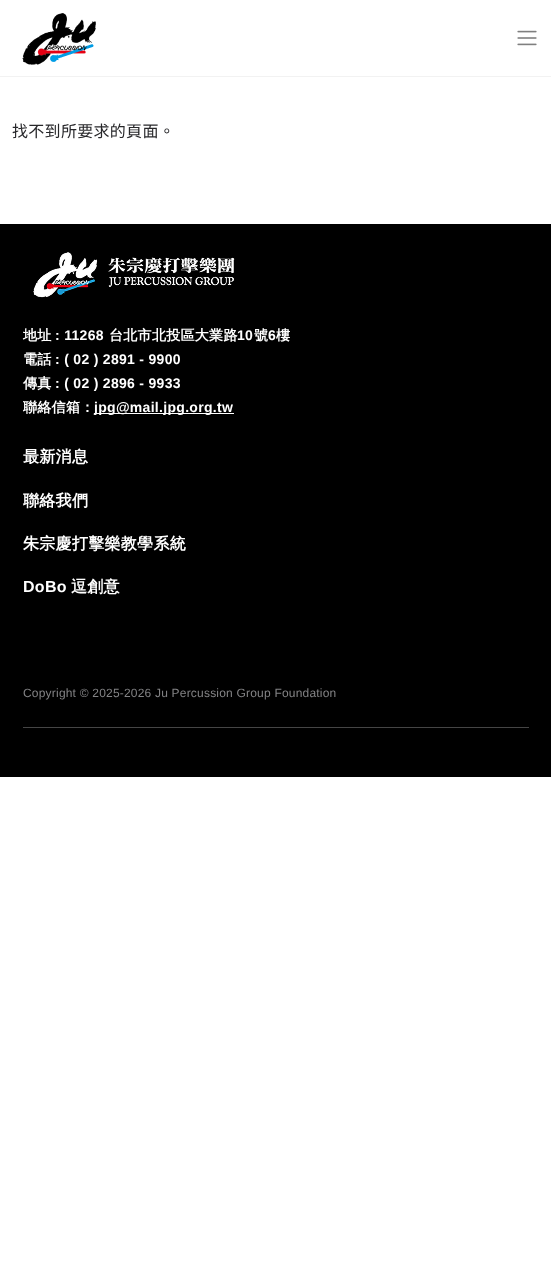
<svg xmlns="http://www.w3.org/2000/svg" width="551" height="1265">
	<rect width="100%" height="100%" fill="#FFFFFF" />
	<rect x="0" y="76" width="551" height="1" fill="#F2F2F2" />
	<image x="22" y="13" width="74" height="52" href="assets/img1.png" />
	<image x="517" y="30" width="20" height="16" href="assets/img2.png" />
	<text x="12" y="137" font-family="Noto Sans TC" font-size="16" letter-spacing="0.3" fill="#27272A">找不到所要求的頁面。</text>
	<rect x="0" y="224" width="551" height="553" fill="#000000" />
	<image x="33" y="252" width="202" height="46" href="assets/img3.png" />
	<text x="23" y="340" font-family="WenQuanYi Zen Hei" font-size="14" font-weight="700" letter-spacing="0.3" fill="#FFFFFF">地址</text>
	<text x="55" y="340" font-family="Liberation Sans" font-size="14" font-weight="700" letter-spacing="0.3" fill="#FFFFFF">: 11268</text>
	<text x="109" y="340" font-family="WenQuanYi Zen Hei" font-size="14" font-weight="700" letter-spacing="0.3" fill="#FFFFFF">台北市北投區大業路</text>
	<text x="237" y="340" font-family="Liberation Sans" font-size="14" font-weight="700" letter-spacing="0.3" fill="#FFFFFF">10</text>
	<text x="254" y="340" font-family="WenQuanYi Zen Hei" font-size="14" font-weight="700" letter-spacing="0.3" fill="#FFFFFF">號</text>
	<text x="268" y="340" font-family="Liberation Sans" font-size="14" font-weight="700" letter-spacing="0.3" fill="#FFFFFF">6</text>
	<g font-family="WenQuanYi Zen Hei" font-size="14" font-weight="700" letter-spacing="0.3" fill="#FFFFFF">
		<text x="276" y="340">樓</text>
		<text x="23" y="364">電話</text>
	</g>
	<text x="55" y="364" font-family="Liberation Sans" font-size="14" font-weight="700" letter-spacing="0.3" fill="#FFFFFF">: ( 02 ) 2891 - 9900</text>
	<text x="23" y="388" font-family="WenQuanYi Zen Hei" font-size="14" font-weight="700" letter-spacing="0.3" fill="#FFFFFF">傳真</text>
	<text x="55" y="388" font-family="Liberation Sans" font-size="14" font-weight="700" letter-spacing="0.3" fill="#FFFFFF">: ( 02 ) 2896 - 9933</text>
	<text x="23" y="412" font-family="WenQuanYi Zen Hei" font-size="14" font-weight="700" letter-spacing="0.3" fill="#FFFFFF">聯絡信箱：</text>
	<rect x="94" y="413" width="140" height="1" fill="#FFFFFF" />
	<text x="94" y="412" font-family="Liberation Sans" font-size="14" font-weight="700" letter-spacing="0.3" fill="#FFFFFF">jpg@mail.jpg.org.tw</text>
	<g font-family="WenQuanYi Zen Hei" font-size="16" font-weight="700" letter-spacing="0.3" fill="#FFFFFF">
		<text x="23" y="462">最新消息</text>
		<text x="23" y="506">聯絡我們</text>
		<text x="23" y="549">朱宗慶打擊樂教學系統</text>
	</g>
	<text x="23" y="592" font-family="Liberation Sans" font-size="16" font-weight="700" letter-spacing="0.3" fill="#FFFFFF">DoBo</text>
	<text x="71" y="592" font-family="WenQuanYi Zen Hei" font-size="16" font-weight="700" letter-spacing="0.3" fill="#FFFFFF">逗創意</text>
	<rect x="23" y="727" width="506" height="1" fill="#454545" />
	<text x="23" y="697" font-family="Liberation Sans" font-size="12" letter-spacing="0.2" fill="#838385">Copyright © 2025-2026 Ju Percussion Group Foundation</text>
</svg>
